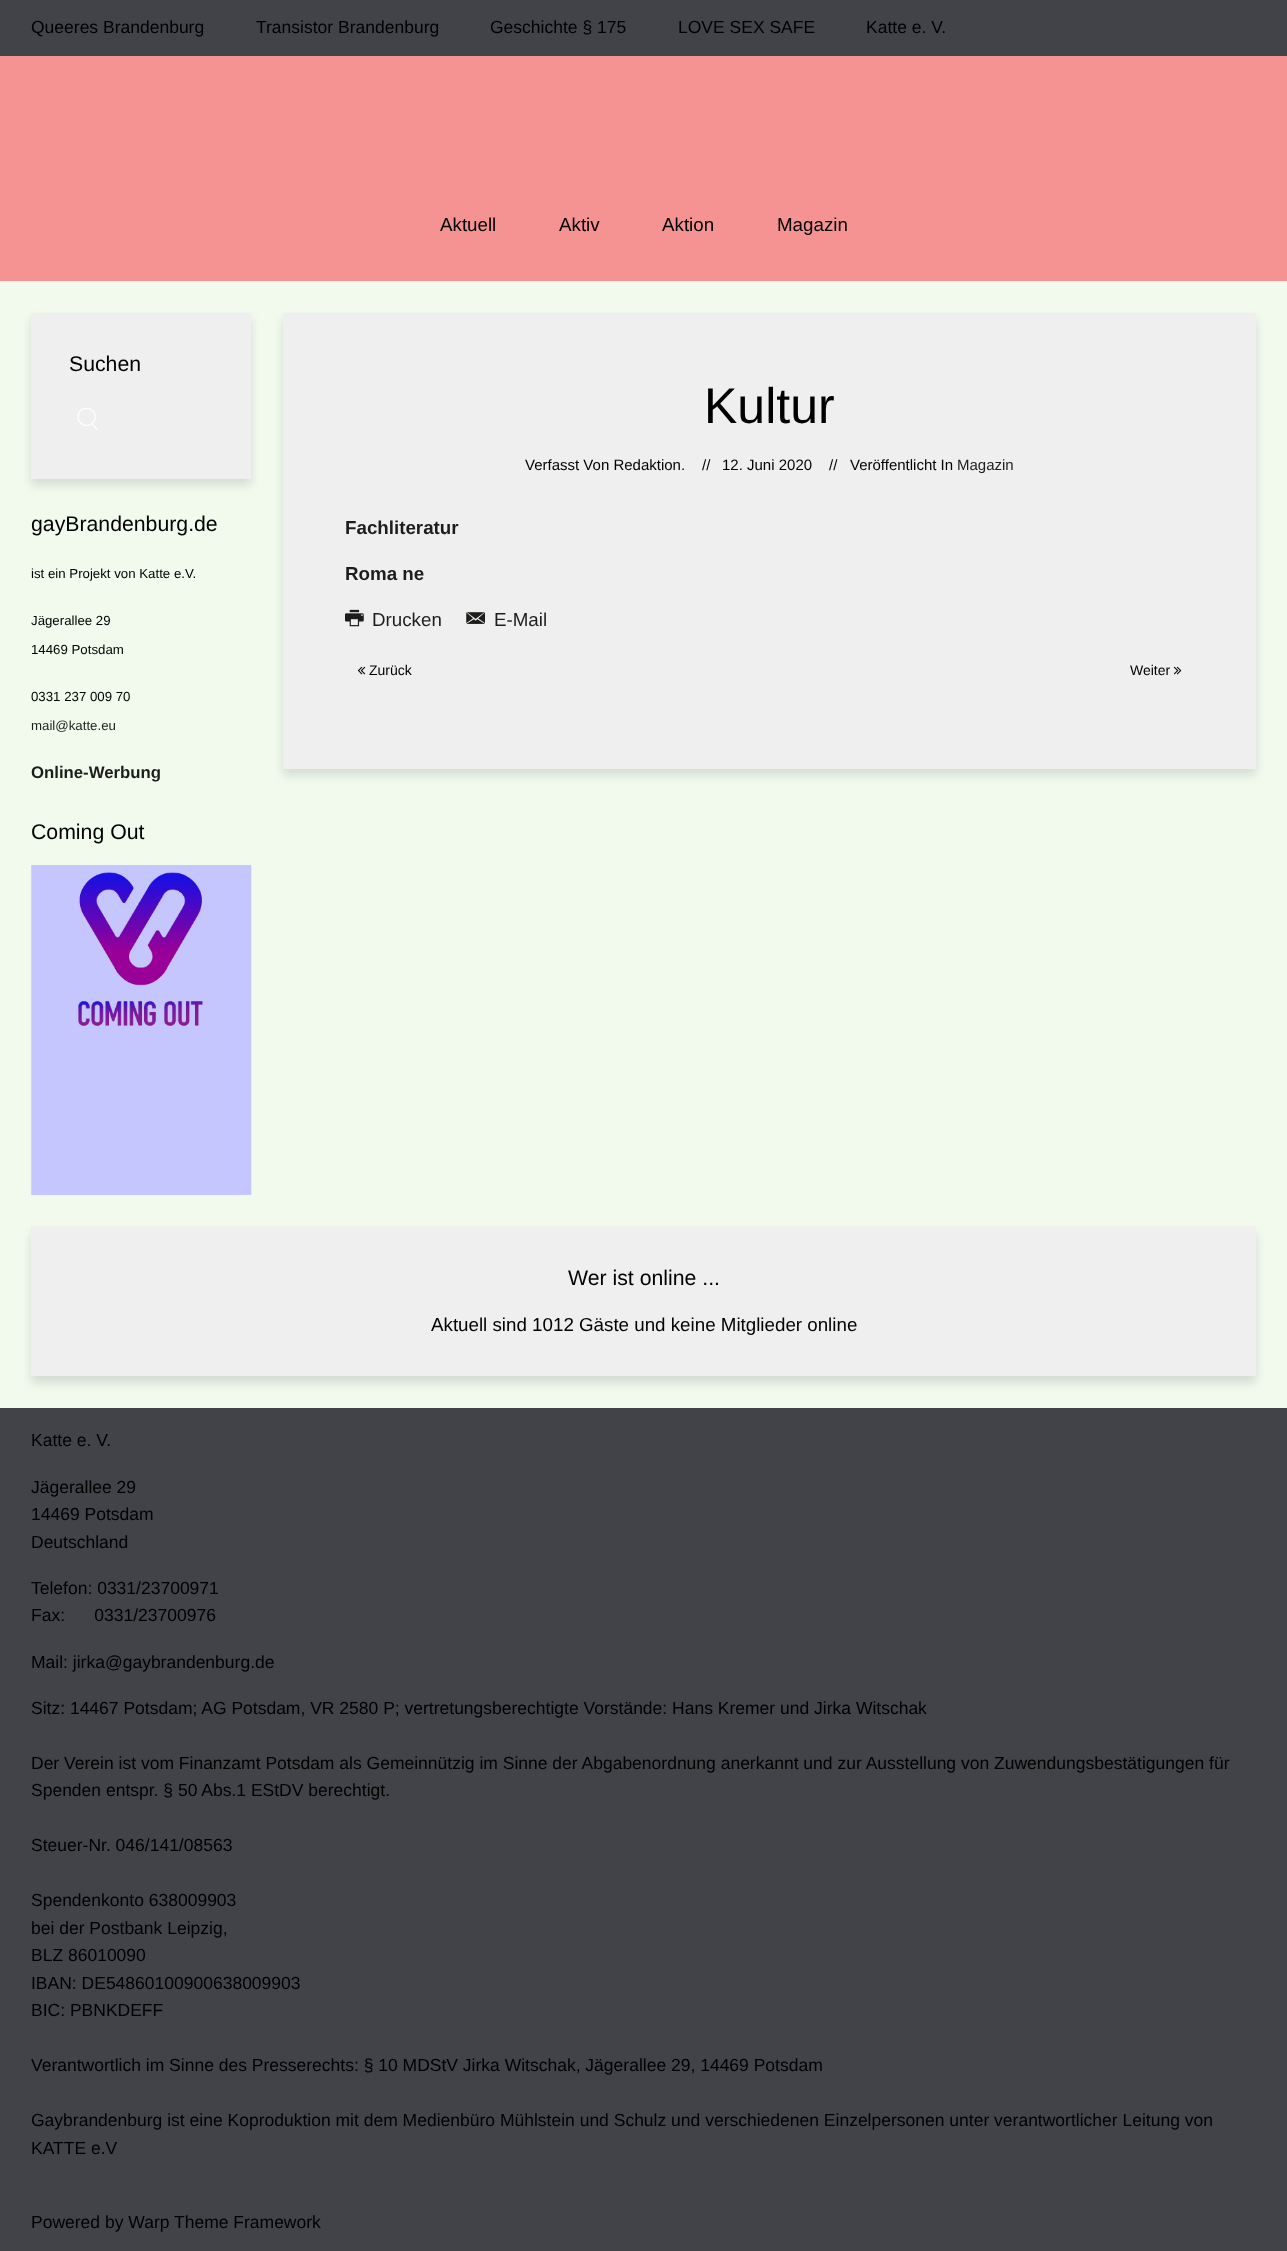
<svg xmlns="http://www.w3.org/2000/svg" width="1287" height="2251">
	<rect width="100%" height="100%" fill="#F1FAED" />
	<rect x="0" y="0" width="1287" height="56" fill="#414349" />
	<g font-family="Liberation Sans" font-size="17.5" fill="#000000">
		<text x="31" y="33">Queeres Brandenburg</text>
		<text x="256" y="33">Transistor Brandenburg</text>
		<text x="490" y="33">Geschichte § 175</text>
		<text x="678" y="33">LOVE SEX SAFE</text>
		<text x="866" y="33">Katte e. V.</text>
	</g>
	<rect x="0" y="56" width="1287" height="225" fill="#F59292" />
	<g font-family="Liberation Sans" font-size="18.75" fill="#000000">
		<text x="440" y="231">Aktuell</text>
		<text x="559" y="231">Aktiv</text>
		<text x="662" y="231">Aktion</text>
		<text x="777" y="231">Magazin</text>
	</g>
	<rect x="31" y="319" width="220" height="166" fill="#A0A6A8" fill-opacity="0.35" filter="blur(5px)" />
	<rect x="31" y="313" width="220" height="166" fill="#EFEFEF" />
	<text x="69" y="371" font-family="Liberation Sans" font-size="21.25" fill="#000000">Suchen</text>
	<image x="77" y="407" width="21" height="23" href="assets/img1.png" />
	<text x="31" y="531" font-family="Liberation Sans" font-size="21.25" fill="#000000">gayBrandenburg.de</text>
	<g font-family="Liberation Sans" font-size="13.25" fill="#000000">
		<text x="31" y="578">ist ein Projekt von Katte e.V.</text>
		<text x="31" y="625">Jägerallee 29</text>
		<text x="31" y="654">14469 Potsdam</text>
		<text x="31" y="701">0331 237 009 70</text>
	</g>
	<text x="31" y="730" font-family="Liberation Sans" font-size="13.25" fill="#1D1E1C">mail@katte.eu</text>
	<text x="31" y="778" font-family="Liberation Sans" font-size="16.75" font-weight="700" fill="#1D1E1C">Online-Werbung</text>
	<text x="31" y="839" font-family="Liberation Sans" font-size="21.25" fill="#000000">Coming Out</text>
	<image x="31" y="865" width="221" height="330" href="assets/img2.png" />
	<rect x="283" y="319" width="973" height="456" fill="#A0A6A8" fill-opacity="0.35" filter="blur(5px)" />
	<rect x="283" y="313" width="973" height="456" fill="#EFEFEF" />
	<text x="704" y="423" font-family="Liberation Sans" font-size="50" fill="#000000">Kultur</text>
	<g font-family="Liberation Sans" font-size="15" fill="#000000">
		<text x="525" y="470">Verfasst Von Redaktion.</text>
		<text x="702" y="470">//</text>
		<text x="722" y="470">12. Juni 2020</text>
		<text x="829" y="470">//</text>
		<text x="850" y="470">Veröffentlicht In</text>
	</g>
	<text x="957" y="470" font-family="Liberation Sans" font-size="15" fill="#1D1E1C">Magazin</text>
	<g font-family="Liberation Sans" font-size="18.75" font-weight="700" fill="#1D1E1C">
		<text x="345" y="534">Fachliteratur</text>
		<text x="345" y="580">Roma ne</text>
	</g>
	<image x="345" y="609" width="19" height="18" href="assets/img3.png" />
	<text x="372" y="626" font-family="Liberation Sans" font-size="18.75" fill="#1D1E1C">Drucken</text>
	<image x="466" y="612" width="19" height="12" href="assets/img4.png" />
	<text x="494" y="626" font-family="Liberation Sans" font-size="18.75" fill="#1D1E1C">E-Mail</text>
	<image x="357" y="666" width="9" height="9" href="assets/img5.png" />
	<g font-family="Liberation Sans" font-size="14" fill="#000000">
		<text x="369" y="675">Zurück</text>
		<text x="1130" y="675">Weiter</text>
	</g>
	<image x="1173" y="666" width="9" height="9" href="assets/img6.png" />
	<rect x="31" y="1233" width="1225" height="150" fill="#A0A6A8" fill-opacity="0.35" filter="blur(5px)" />
	<rect x="31" y="1226" width="1225" height="150" fill="#EFEFEF" />
	<text x="568" y="1285" font-family="Liberation Sans" font-size="21.25" fill="#000000">Wer ist online ...</text>
	<text x="431" y="1331" font-family="Liberation Sans" font-size="18.75" fill="#000000">Aktuell sind 1012 Gäste und keine Mitglieder online</text>
	<rect x="0" y="1408" width="1287" height="843" fill="#414349" />
	<g font-family="Liberation Sans" font-size="17.5" fill="#000000">
		<text x="31" y="1446">Katte e. V.</text>
		<text x="31" y="1493">Jägerallee 29</text>
		<text x="31" y="1520">14469 Potsdam</text>
		<text x="31" y="1548">Deutschland</text>
		<text x="31" y="1594">Telefon: 0331/23700971</text>
		<text x="31" y="1621" xml:space="preserve">Fax:      0331/23700976</text>
		<text x="31" y="1668">Mail: jirka@gaybrandenburg.de</text>
		<text x="31" y="1714">Sitz: 14467 Potsdam; AG Potsdam, VR 2580 P; vertretungsberechtigte Vorstände: Hans Kremer und Jirka Witschak</text>
		<text x="31" y="1769">Der Verein ist vom Finanzamt Potsdam als Gemeinnützig im Sinne der Abgabenordnung anerkannt und zur Ausstellung von Zuwendungsbestätigungen für</text>
		<text x="31" y="1796">Spenden entspr. § 50 Abs.1 EStDV berechtigt.</text>
		<text x="31" y="1851">Steuer-Nr. 046/141/08563</text>
		<text x="31" y="1906">Spendenkonto 638009903</text>
		<text x="31" y="1934">bei der Postbank Leipzig,</text>
		<text x="31" y="1961">BLZ 86010090</text>
		<text x="31" y="1989">IBAN: DE54860100900638009903</text>
		<text x="31" y="2016">BIC: PBNKDEFF</text>
		<text x="31" y="2071">Verantwortlich im Sinne des Presserechts: § 10 MDStV Jirka Witschak, Jägerallee 29, 14469 Potsdam</text>
		<text x="31" y="2126">Gaybrandenburg ist eine Koproduktion mit dem Medienbüro Mühlstein und Schulz und verschiedenen Einzelpersonen unter verantwortlicher Leitung von</text>
		<text x="31" y="2154">KATTE e.V</text>
		<text x="31" y="2228">Powered by Warp Theme Framework</text>
	</g>
</svg>
